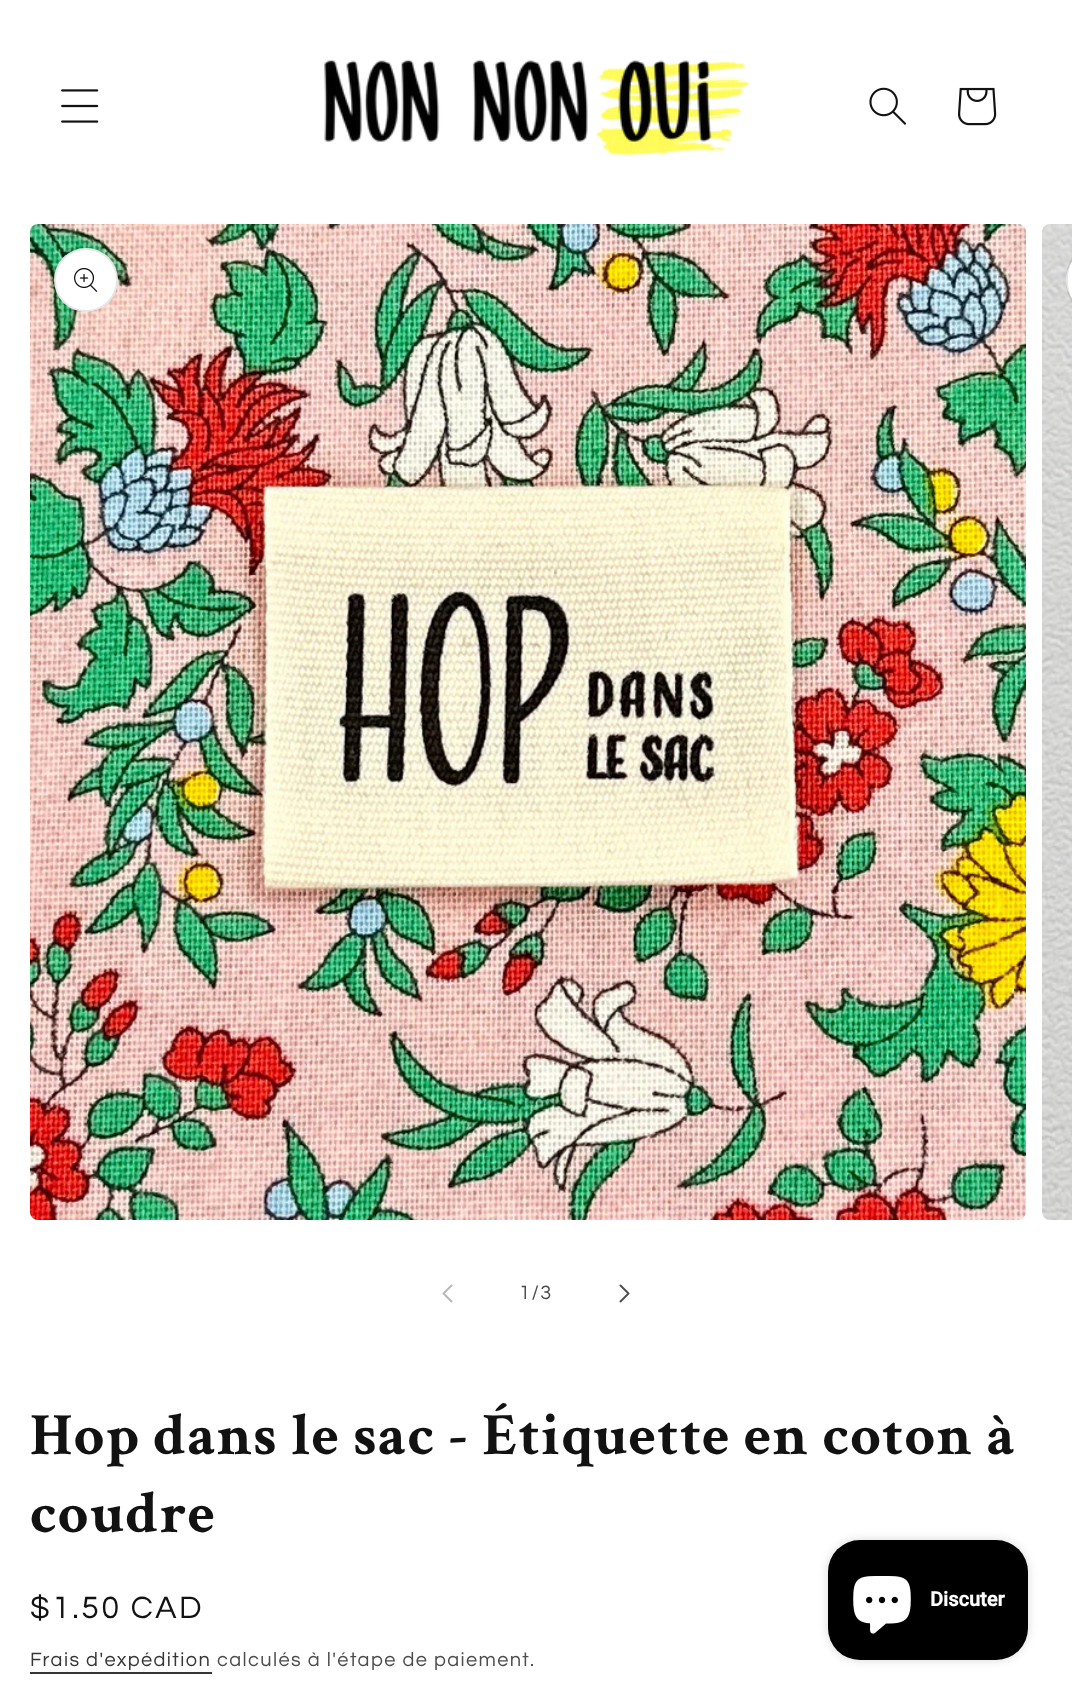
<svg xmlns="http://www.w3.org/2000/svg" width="1072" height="1702">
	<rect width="100%" height="100%" fill="#FFFFFF" />
	<image x="61" y="89" width="38" height="34" href="assets/img1.png" />
	<image x="324" y="60" width="426" height="96" href="assets/img2.png" />
	<image x="869" y="87" width="37" height="38" href="assets/img3.png" />
	<image x="958" y="87" width="39" height="39" href="assets/img4.png" />
	<image x="30" y="224" width="996" height="996" href="assets/img5.png" />
	<circle cx="86" cy="280" r="32" fill="#FFFFFF" />
	<circle cx="86" cy="280" r="31" fill="none" stroke="#121212" stroke-opacity="0.1" stroke-width="2" />
	<image x="74" y="268" width="24" height="24" href="assets/img6.png" />
	<image x="1042" y="224" width="30" height="996" href="assets/img7.png" />
	<path d="M1098 248H1072V312H1098C1080.5 312 1066 297.5 1066 280C1066 262.5 1080.5 248 1098 248Z" fill="#FFFFFF" />
	<rect x="1067" y="249" width="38" height="62" rx="31" fill="none" stroke="#121212" stroke-opacity="0.1" stroke-width="2" />
	<image x="442" y="1284" width="11" height="19" href="assets/img8.png" />
	<text x="519" y="1299" font-family="Questrial" font-size="20" letter-spacing="1.4" fill="#4D4D4D">1/3</text>
	<image x="619" y="1284" width="11" height="19" href="assets/img9.png" />
	<g font-family="Crimson Text" font-size="60" font-weight="700" letter-spacing="1.2" fill="#121212">
		<text x="30" y="1454">Hop dans le sac - Étiquette en coton à</text>
		<text x="30" y="1532">coudre</text>
	</g>
	<text x="30" y="1618" font-family="Questrial" font-size="32" letter-spacing="2.5" fill="#121212">$1.50 CAD</text>
	<text x="30" y="1666" font-family="Questrial" font-size="20" letter-spacing="1.4" fill="#363636">Frais d'expédition</text>
	<rect x="30" y="1672" width="182" height="2" fill="#363636" />
	<text x="217" y="1666" font-family="Questrial" font-size="20" letter-spacing="1.4" fill="#4D4D4D">calculés à l'étape de paiement.</text>
	<rect x="828" y="1540" width="200" height="120" rx="32" fill="#000000" fill-opacity="0.15" filter="blur(5px)" />
	<rect x="828" y="1540" width="200" height="120" rx="32" fill="#000000" />
	<image x="853" y="1576" width="58" height="58" href="assets/img10.png" />
	<text x="930" y="1606" font-family="Roboto" font-size="20" font-weight="700" fill="#FFFFFF">Discuter</text>
</svg>
